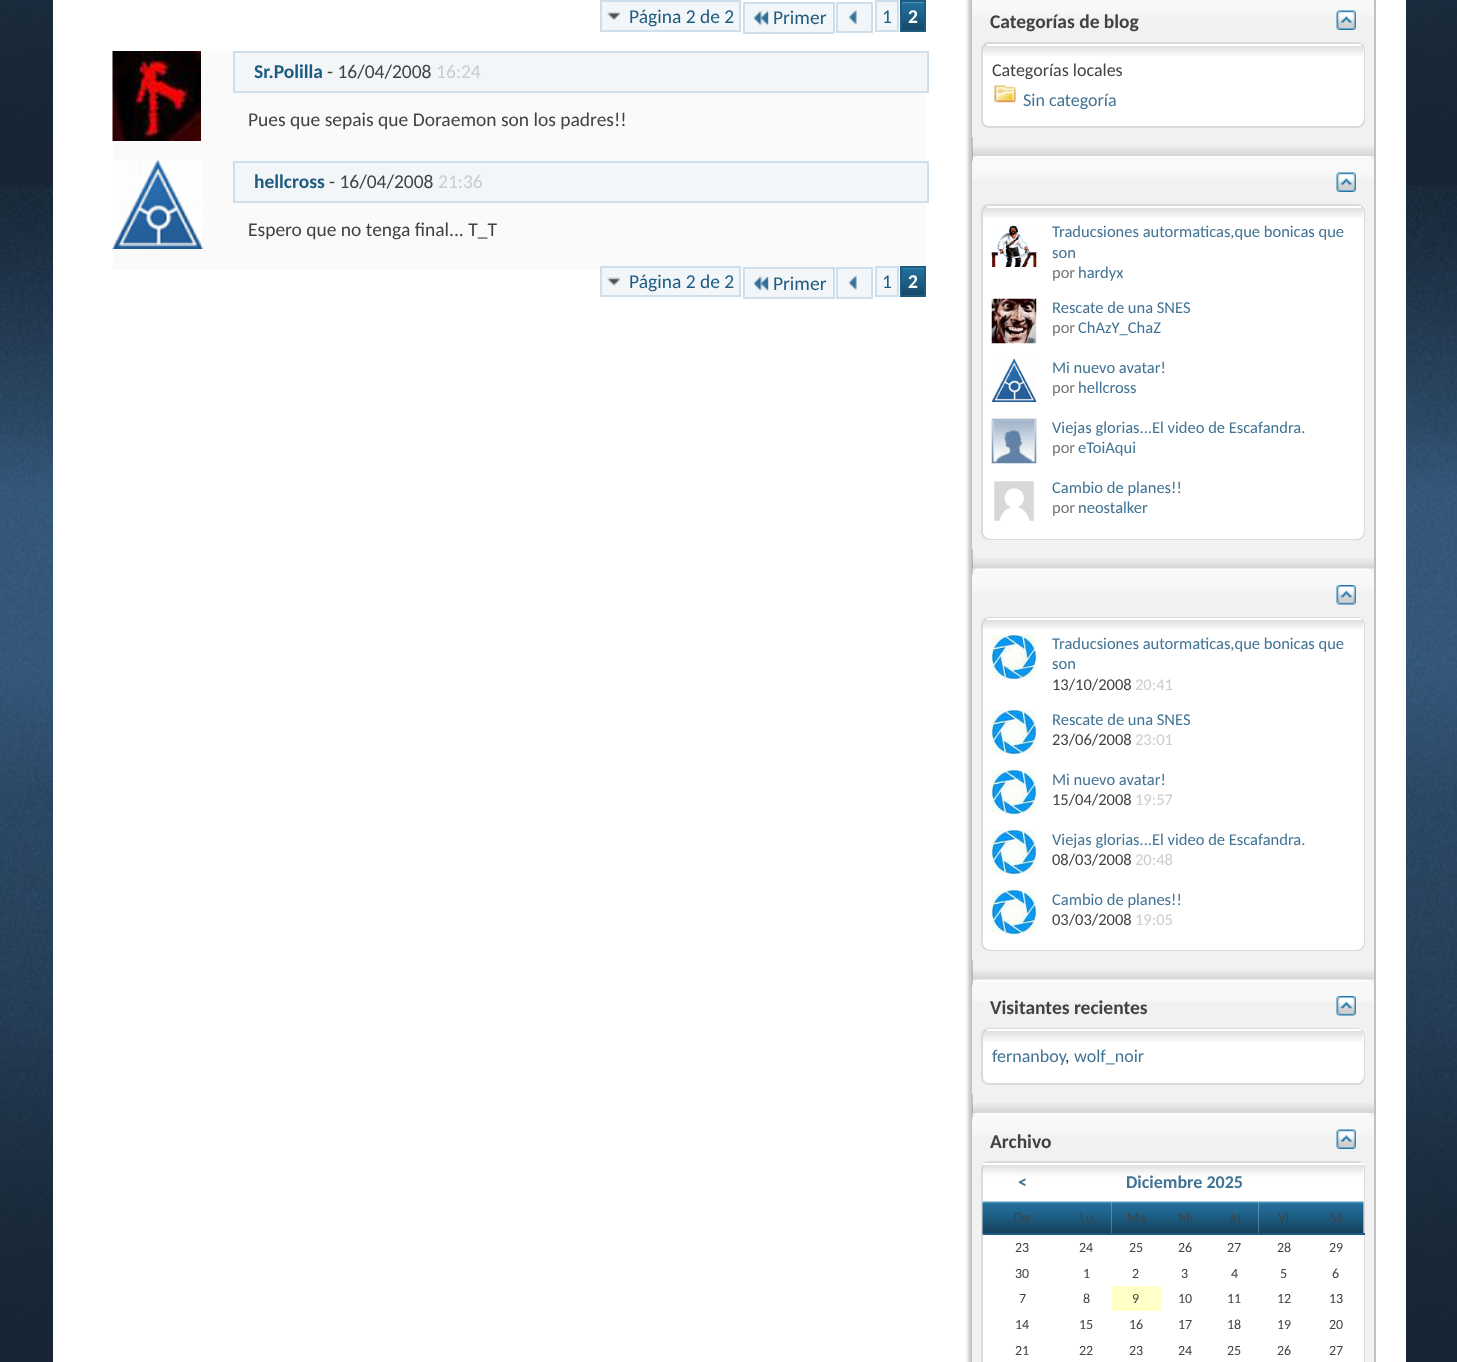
<svg xmlns="http://www.w3.org/2000/svg" width="1457" height="1362">
	<rect width="100%" height="100%" fill="#FFFFFF" />
	<image x="0" y="0" width="1457" height="1362" href="assets/img1.png" />
	<rect x="53" y="0" width="1353" height="1362" fill="#FFFFFF" />
	<rect x="602" y="2" width="137" height="28" fill="#F2F6F8" />
	<image x="607" y="11" width="14" height="10" href="assets/img2.png" />
	<rect x="601" y="1" width="139" height="30" fill="none" stroke="#CEDFEB" stroke-width="2" />
	<text x="629" y="23" font-family="Carlito" font-size="19.5" fill="#1D5B80">Página 2 de 2</text>
	<rect x="745" y="4" width="88" height="28" fill="#F2F6F8" />
	<image x="753" y="10" width="16" height="16" href="assets/img3.png" />
	<text x="773" y="24" font-family="Carlito" font-size="19.5" fill="#1D5B80">Primer</text>
	<rect x="743" y="2" width="91" height="2" fill="#CEDFEB" />
	<rect x="743" y="32" width="30" height="2" fill="#CEDFEB" />
	<rect x="743" y="2" width="2" height="31" fill="#CEDFEB" />
	<rect x="833" y="2" width="2" height="31" fill="#CEDFEB" />
	<rect x="773" y="32" width="61" height="2" fill="#CEDFEB" />
	<rect x="837" y="3" width="35" height="29" fill="#F2F6F8" stroke="#CEDFEB" stroke-width="2" />
	<image x="848" y="10" width="9" height="15" href="assets/img4.png" />
	<rect x="876" y="1" width="22" height="30" fill="#F2F6F8" stroke="#CEDFEB" stroke-width="2" />
	<text x="882" y="23" font-family="Carlito" font-size="19.5" fill="#1D5B80">1</text>
	<image x="902" y="2" width="22" height="28" href="assets/img5.png" />
	<rect x="901" y="1" width="24" height="30" fill="none" stroke="#1D5B80" stroke-width="2" />
	<text x="908" y="23" font-family="Carlito" font-size="19.5" font-weight="700" fill="#FFFFFF">2</text>
	<rect x="113" y="51" width="813" height="219" fill="#FAFAFA" />
	<image x="112" y="51" width="89" height="90" href="assets/img6.png" />
	<rect x="234" y="52" width="694" height="40" fill="#F2F6F8" stroke="#CEDFEB" stroke-width="2" />
	<text x="254" y="78" font-family="Carlito" font-size="19.5" font-weight="700" fill="#1D5B80">Sr.Polilla</text>
	<text x="327" y="78" font-family="Carlito" font-size="19.5" fill="#424242">- 16/04/2008</text>
	<text x="436" y="78" font-family="Carlito" font-size="19.5" fill="#CCCCCC">16:24</text>
	<text x="248" y="126" font-family="Carlito" font-size="19.5" fill="#424242">Pues que sepais que Doraemon son los padres!!</text>
	<image x="112" y="160" width="91" height="89" href="assets/img7.png" />
	<rect x="234" y="162" width="694" height="40" fill="#F2F6F8" stroke="#CEDFEB" stroke-width="2" />
	<text x="254" y="188" font-family="Carlito" font-size="19.5" font-weight="700" fill="#1D5B80">hellcross</text>
	<text x="329" y="188" font-family="Carlito" font-size="19.5" fill="#424242">- 16/04/2008</text>
	<text x="438" y="188" font-family="Carlito" font-size="19.5" fill="#CCCCCC">21:36</text>
	<text x="248" y="236" font-family="Carlito" font-size="19.5" fill="#424242">Espero que no tenga final... T_T</text>
	<rect x="602" y="268" width="137" height="27" fill="#F2F6F8" />
	<image x="607" y="277" width="14" height="9" href="assets/img8.png" />
	<rect x="601" y="267" width="139" height="29" fill="none" stroke="#CEDFEB" stroke-width="2" />
	<text x="629" y="288" font-family="Carlito" font-size="19.5" fill="#1D5B80">Página 2 de 2</text>
	<rect x="745" y="269" width="88" height="28" fill="#F2F6F8" />
	<image x="753" y="276" width="16" height="16" href="assets/img9.png" />
	<text x="773" y="290" font-family="Carlito" font-size="19.5" fill="#1D5B80">Primer</text>
	<rect x="743" y="267" width="91" height="2" fill="#CEDFEB" />
	<rect x="743" y="297" width="30" height="2" fill="#CEDFEB" />
	<rect x="743" y="267" width="2" height="32" fill="#CEDFEB" />
	<rect x="833" y="267" width="2" height="32" fill="#CEDFEB" />
	<rect x="773" y="297" width="61" height="2" fill="#CEDFEB" />
	<rect x="837" y="268" width="35" height="30" fill="#F2F6F8" stroke="#CEDFEB" stroke-width="2" />
	<image x="848" y="275" width="9" height="15" href="assets/img10.png" />
	<rect x="876" y="267" width="22" height="29" fill="#F2F6F8" stroke="#CEDFEB" stroke-width="2" />
	<text x="882" y="288" font-family="Carlito" font-size="19.5" fill="#1D5B80">1</text>
	<image x="902" y="268" width="22" height="27" href="assets/img11.png" />
	<rect x="901" y="267" width="24" height="29" fill="none" stroke="#1D5B80" stroke-width="2" />
	<text x="908" y="288" font-family="Carlito" font-size="19.5" font-weight="700" fill="#FFFFFF">2</text>
	<rect x="968" y="-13" width="405" height="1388" rx="8" fill="#C8C8C8" filter="blur(1.5px)" />
	<rect x="973" y="0" width="401" height="1121" fill="#F1F1F1" />
	<rect x="972" y="-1" width="403" height="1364" fill="none" stroke="#C1C1C1" stroke-width="2" />
	<path d="M980-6H1366C1370.5-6 1374-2.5 1374 2V137H972V2C972-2.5 975.5-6 980-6Z" fill="#F1F1F1" />
	<image x="972" y="0" width="402" height="17" href="assets/img12.png" />
	<text x="990" y="28" font-family="Carlito" font-size="19.5" font-weight="700" fill="#424242">Categorías de blog</text>
	<image x="1336" y="10" width="20" height="20" href="assets/img13.png" />
	<rect x="982" y="43" width="382" height="84" rx="7" fill="#FFFFFF" stroke="#DADADA" stroke-width="2" />
	<rect x="983" y="44" width="381" height="82" rx="8" fill="#FFFFFF" />
	<image x="983" y="45" width="380" height="11" href="assets/img14.png" />
	<rect x="987" y="44" width="374" height="2" fill="#FFFFFF" />
	<text x="992" y="76" font-family="Carlito" font-size="18" fill="#424242">Categorías locales</text>
	<image x="994" y="85" width="22" height="18" href="assets/img15.png" />
	<text x="1023" y="106" font-family="Carlito" font-size="18" fill="#417394">Sin categoría</text>
	<image x="972" y="146" width="402" height="10" href="assets/img16.png" />
	<path d="M980 156H1366C1370.5 156 1374 159.5 1374 164V549H972V164C972 159.5 975.5 156 980 156Z" fill="#F1F1F1" />
	<image x="972" y="156" width="402" height="23" href="assets/img17.png" />
	<image x="1336" y="172" width="20" height="20" href="assets/img13.png" />
	<rect x="982" y="205" width="382" height="334" rx="7" fill="#FFFFFF" stroke="#DADADA" stroke-width="2" />
	<rect x="983" y="206" width="381" height="333" rx="8" fill="#FFFFFF" />
	<image x="983" y="207" width="380" height="11" href="assets/img18.png" />
	<rect x="987" y="206" width="374" height="2" fill="#FFFFFF" />
	<image x="991" y="225" width="46" height="42" href="assets/img19.png" />
	<g font-family="Carlito" font-size="16.5" fill="#417394">
		<text x="1052" y="237">Traducsiones autormaticas,que bonicas que</text>
		<text x="1052" y="258">son</text>
	</g>
	<text x="1052" y="278" font-family="Carlito" font-size="16.5" fill="#777777">por</text>
	<text x="1078" y="278" font-family="Carlito" font-size="16.5" fill="#417394">hardyx</text>
	<image x="991" y="298" width="46" height="46" href="assets/img20.png" />
	<text x="1052" y="313" font-family="Carlito" font-size="16.5" fill="#417394">Rescate de una SNES</text>
	<text x="1052" y="333" font-family="Carlito" font-size="16.5" fill="#777777">por</text>
	<text x="1078" y="333" font-family="Carlito" font-size="16.5" fill="#417394">ChAzY_ChaZ</text>
	<image x="991" y="358" width="46" height="44" href="assets/img21.png" />
	<text x="1052" y="373" font-family="Carlito" font-size="16.5" fill="#417394">Mi nuevo avatar!</text>
	<text x="1052" y="393" font-family="Carlito" font-size="16.5" fill="#777777">por</text>
	<text x="1078" y="393" font-family="Carlito" font-size="16.5" fill="#417394">hellcross</text>
	<image x="991" y="418" width="46" height="46" href="assets/img22.png" />
	<text x="1052" y="433" font-family="Carlito" font-size="16.5" fill="#417394">Viejas glorias...El video de Escafandra.</text>
	<text x="1052" y="453" font-family="Carlito" font-size="16.5" fill="#777777">por</text>
	<text x="1078" y="453" font-family="Carlito" font-size="16.5" fill="#417394">eToiAqui</text>
	<image x="994" y="481" width="40" height="40" href="assets/img23.png" />
	<text x="1052" y="493" font-family="Carlito" font-size="16.5" fill="#417394">Cambio de planes!!</text>
	<text x="1052" y="513" font-family="Carlito" font-size="16.5" fill="#777777">por</text>
	<text x="1078" y="513" font-family="Carlito" font-size="16.5" fill="#417394">neostalker</text>
	<image x="972" y="558" width="402" height="11" href="assets/img24.png" />
	<path d="M980 569H1366C1370.5 569 1374 572.5 1374 577V960H972V577C972 572.5 975.5 569 980 569Z" fill="#F1F1F1" />
	<image x="972" y="568" width="402" height="23" href="assets/img25.png" />
	<image x="1336" y="585" width="20" height="20" href="assets/img26.png" />
	<rect x="982" y="618" width="382" height="332" rx="7" fill="#FFFFFF" stroke="#DADADA" stroke-width="2" />
	<rect x="983" y="618" width="381" height="332" rx="8" fill="#FFFFFF" />
	<image x="983" y="619" width="380" height="11" href="assets/img27.png" />
	<rect x="987" y="618" width="374" height="2" fill="#FFFFFF" />
	<image x="991" y="634" width="46" height="46" href="assets/img28.png" />
	<g font-family="Carlito" font-size="16.5" fill="#417394">
		<text x="1052" y="649">Traducsiones autormaticas,que bonicas que</text>
		<text x="1052" y="669">son</text>
	</g>
	<text x="1052" y="690" font-family="Carlito" font-size="16.5" fill="#424242">13/10/2008</text>
	<text x="1135" y="690" font-family="Carlito" font-size="16.5" fill="#CCCCCC">20:41</text>
	<image x="991" y="709" width="46" height="46" href="assets/img28.png" />
	<text x="1052" y="725" font-family="Carlito" font-size="16.5" fill="#417394">Rescate de una SNES</text>
	<text x="1052" y="745" font-family="Carlito" font-size="16.5" fill="#424242">23/06/2008</text>
	<text x="1135" y="745" font-family="Carlito" font-size="16.5" fill="#CCCCCC">23:01</text>
	<image x="991" y="769" width="46" height="46" href="assets/img28.png" />
	<text x="1052" y="785" font-family="Carlito" font-size="16.5" fill="#417394">Mi nuevo avatar!</text>
	<text x="1052" y="805" font-family="Carlito" font-size="16.5" fill="#424242">15/04/2008</text>
	<text x="1135" y="805" font-family="Carlito" font-size="16.5" fill="#CCCCCC">19:57</text>
	<image x="991" y="829" width="46" height="46" href="assets/img28.png" />
	<text x="1052" y="845" font-family="Carlito" font-size="16.5" fill="#417394">Viejas glorias...El video de Escafandra.</text>
	<text x="1052" y="865" font-family="Carlito" font-size="16.5" fill="#424242">08/03/2008</text>
	<text x="1135" y="865" font-family="Carlito" font-size="16.5" fill="#CCCCCC">20:48</text>
	<image x="991" y="889" width="46" height="46" href="assets/img28.png" />
	<text x="1052" y="905" font-family="Carlito" font-size="16.5" fill="#417394">Cambio de planes!!</text>
	<text x="1052" y="925" font-family="Carlito" font-size="16.5" fill="#424242">03/03/2008</text>
	<text x="1135" y="925" font-family="Carlito" font-size="16.5" fill="#CCCCCC">19:05</text>
	<image x="972" y="970" width="402" height="10" href="assets/img29.png" />
	<path d="M980 980H1366C1370.5 980 1374 983.5 1374 988V1094H972V988C972 983.5 975.5 980 980 980Z" fill="#F1F1F1" />
	<image x="972" y="979" width="402" height="23" href="assets/img30.png" />
	<text x="990" y="1014" font-family="Carlito" font-size="19.5" font-weight="700" fill="#424242">Visitantes recientes</text>
	<image x="1336" y="996" width="20" height="20" href="assets/img26.png" />
	<rect x="982" y="1029" width="382" height="55" rx="7" fill="#FFFFFF" stroke="#DADADA" stroke-width="2" />
	<rect x="983" y="1029" width="381" height="54" rx="8" fill="#FFFFFF" />
	<image x="983" y="1030" width="380" height="12" href="assets/img31.png" />
	<rect x="987" y="1029" width="374" height="2" fill="#FFFFFF" />
	<text x="992" y="1062" font-family="Carlito" font-size="18" fill="#417394">fernanboy</text>
	<text x="1065" y="1062" font-family="Carlito" font-size="18" fill="#424242">,</text>
	<text x="1074" y="1062" font-family="Carlito" font-size="18" fill="#417394">wolf_noir</text>
	<image x="972" y="1103" width="402" height="10" href="assets/img16.png" />
	<path d="M980 1113H1366C1370.5 1113 1374 1116.5 1374 1121V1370H972V1121C972 1116.5 975.5 1113 980 1113Z" fill="#F1F1F1" />
	<image x="972" y="1113" width="402" height="23" href="assets/img32.png" />
	<text x="990" y="1148" font-family="Carlito" font-size="19.5" font-weight="700" fill="#424242">Archivo</text>
	<image x="1336" y="1129" width="20" height="20" href="assets/img13.png" />
	<rect x="982" y="1162" width="382" height="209" rx="7" fill="#FFFFFF" stroke="#DADADA" stroke-width="2" />
	<rect x="983" y="1163" width="381" height="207" rx="8" fill="#FFFFFF" />
	<image x="982" y="1165" width="381" height="70" href="assets/img33.png" />
	<rect x="983" y="1163" width="381" height="2" fill="#FFFFFF" />
	<g font-family="Carlito" font-size="18" font-weight="700" fill="#417394">
		<text x="1018" y="1188">&lt;</text>
		<text x="1126" y="1188">Diciembre 2025</text>
	</g>
	<image x="982" y="1201" width="80" height="32" href="assets/img34.png" />
	<text x="1014" y="1222" font-family="Carlito" font-size="14" fill="#424242">Do</text>
	<image x="1062" y="1201" width="50" height="32" href="assets/img35.png" />
	<rect x="1308" y="1233" width="57" height="2" fill="#1D5B80" />
	<rect x="1259" y="1234" width="51" height="1" fill="#1D5B80" />
	<rect x="1209" y="1233" width="51" height="2" fill="#1D5B80" />
	<rect x="1160" y="1234" width="51" height="1" fill="#1D5B80" />
	<rect x="1110" y="1233" width="51" height="2" fill="#1D5B80" />
	<rect x="983" y="1234" width="129" height="1" fill="#1D5B80" />
	<text x="1080" y="1222" font-family="Carlito" font-size="14" fill="#424242">Lu</text>
	<image x="1111" y="1201" width="50" height="32" href="assets/img36.png" />
	<text x="1127" y="1222" font-family="Carlito" font-size="14" fill="#424242">Ma</text>
	<image x="1161" y="1201" width="48" height="32" href="assets/img37.png" />
	<text x="1178" y="1222" font-family="Carlito" font-size="14" fill="#424242">Mi</text>
	<image x="1209" y="1201" width="50" height="32" href="assets/img35.png" />
	<text x="1229" y="1222" font-family="Carlito" font-size="14" fill="#424242">Ju</text>
	<image x="1258" y="1201" width="50" height="32" href="assets/img36.png" />
	<text x="1278" y="1222" font-family="Carlito" font-size="14" fill="#424242">Vi</text>
	<image x="1308" y="1201" width="56" height="32" href="assets/img38.png" />
	<g font-family="Carlito" font-size="14" fill="#424242">
		<text x="1330" y="1222">Sá</text>
		<text x="1015" y="1252">23</text>
		<text x="1079" y="1252">24</text>
		<text x="1129" y="1252">25</text>
		<text x="1178" y="1252">26</text>
		<text x="1227" y="1252">27</text>
		<text x="1277" y="1252">28</text>
		<text x="1329" y="1252">29</text>
		<text x="1015" y="1278">30</text>
		<text x="1083" y="1278">1</text>
		<text x="1132" y="1278">2</text>
		<text x="1181" y="1278">3</text>
		<text x="1231" y="1278">4</text>
		<text x="1280" y="1278">5</text>
		<text x="1332" y="1278">6</text>
		<text x="1019" y="1303">7</text>
		<text x="1083" y="1303">8</text>
	</g>
	<rect x="1112" y="1286" width="49" height="25" fill="#FFFFC8" />
	<g font-family="Carlito" font-size="14" fill="#424242">
		<text x="1132" y="1303">9</text>
		<text x="1178" y="1303">10</text>
		<text x="1227" y="1303">11</text>
		<text x="1277" y="1303">12</text>
		<text x="1329" y="1303">13</text>
		<text x="1015" y="1329">14</text>
		<text x="1079" y="1329">15</text>
		<text x="1129" y="1329">16</text>
		<text x="1178" y="1329">17</text>
		<text x="1227" y="1329">18</text>
		<text x="1277" y="1329">19</text>
		<text x="1329" y="1329">20</text>
		<text x="1015" y="1355">21</text>
		<text x="1079" y="1355">22</text>
		<text x="1129" y="1355">23</text>
		<text x="1178" y="1355">24</text>
		<text x="1227" y="1355">25</text>
		<text x="1277" y="1355">26</text>
		<text x="1329" y="1355">27</text>
	</g>
</svg>
